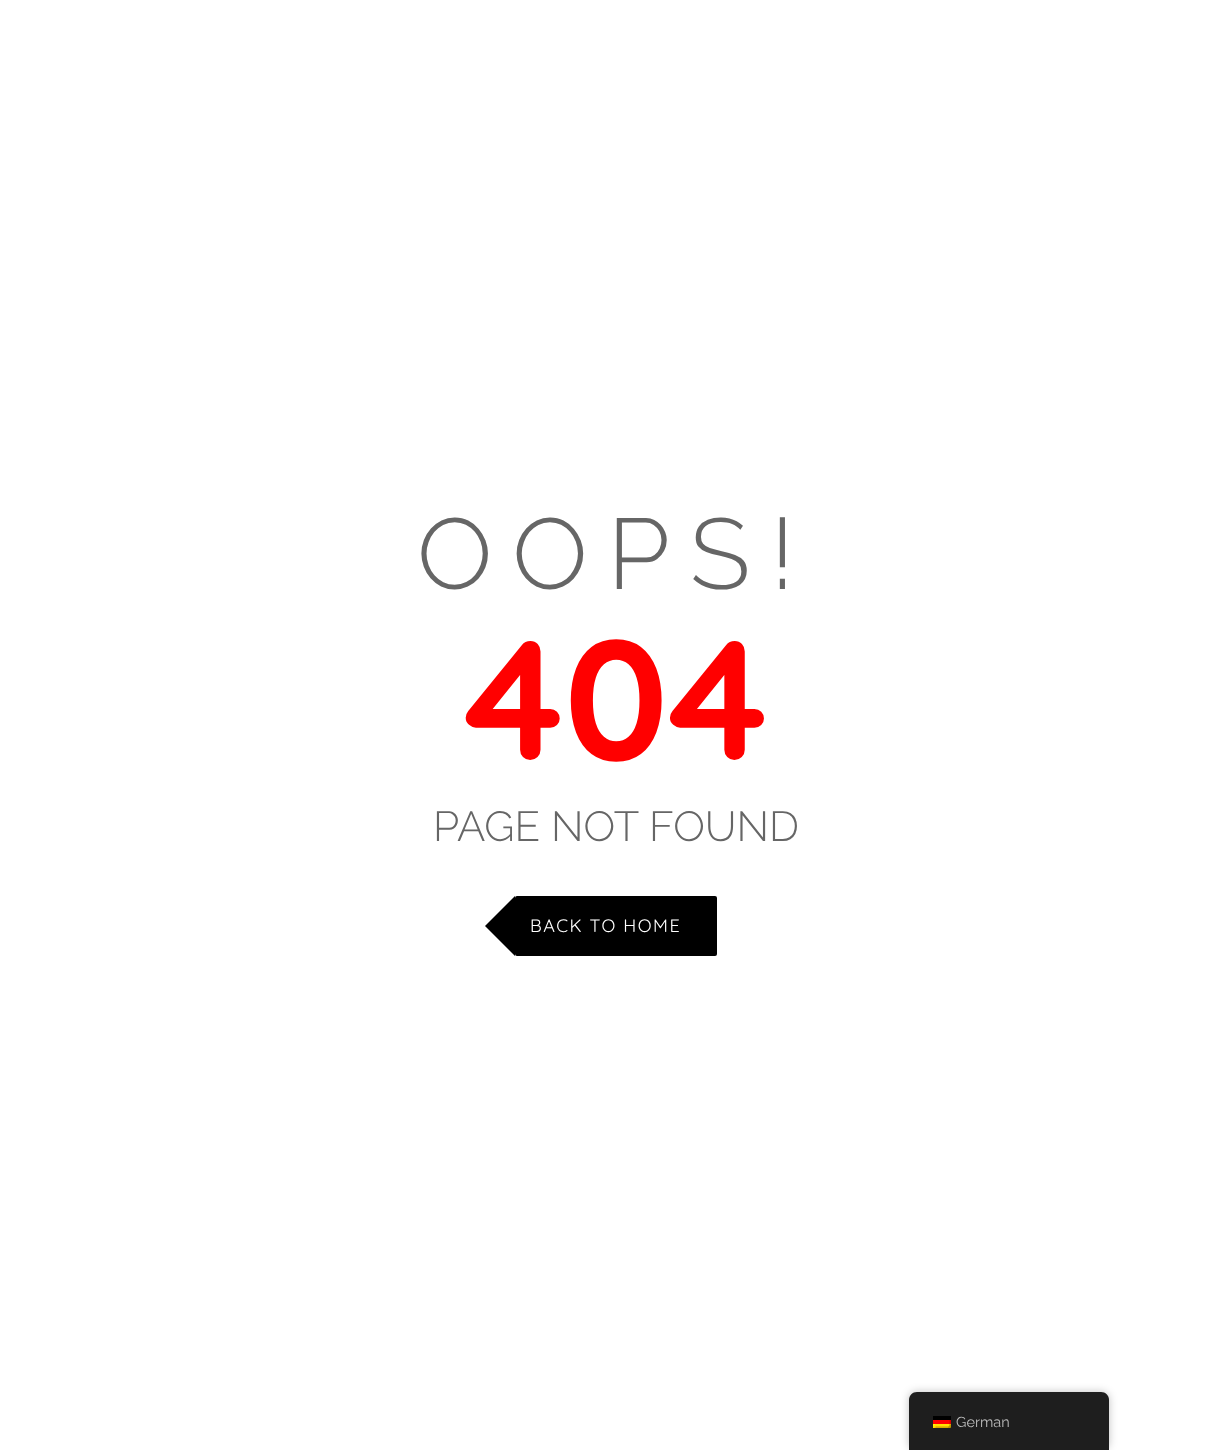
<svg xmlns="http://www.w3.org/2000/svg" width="1232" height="1450">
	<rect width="100%" height="100%" fill="#FFFFFF" />
	<text x="417" y="589" font-family="Raleway" font-size="100" font-weight="300" letter-spacing="20" fill="#666666">OOPS!</text>
	<text x="464" y="760" font-family="Quicksand" font-size="170" font-weight="700" fill="#FF0000">404</text>
	<text x="433" y="841" font-family="Raleway" font-size="42" font-weight="300" fill="#666666">PAGE NOT FOUND</text>
	<rect x="515" y="896" width="202" height="60" rx="2" fill="#000000" />
	<path d="M515 896V956L485 926Z" fill="#000000" />
	<text x="530" y="932" font-family="Quicksand" font-size="18" letter-spacing="1.5" fill="#FFFFFF">BACK TO HOME</text>
	<rect x="909" y="1392" width="200" height="58" rx="8" fill="#000000" fill-opacity="0.25" filter="blur(4px)" />
	<path d="M917 1392H1101C1105.5 1392 1109 1395.5 1109 1400V1450H909V1400C909 1395.5 912.5 1392 917 1392Z" fill="#1E1E1E" />
	<image x="933" y="1416" width="18" height="12" href="assets/img1.png" />
	<text x="956" y="1427" font-family="Raleway" font-size="14.5" fill="#BDBDBD">German</text>
</svg>
